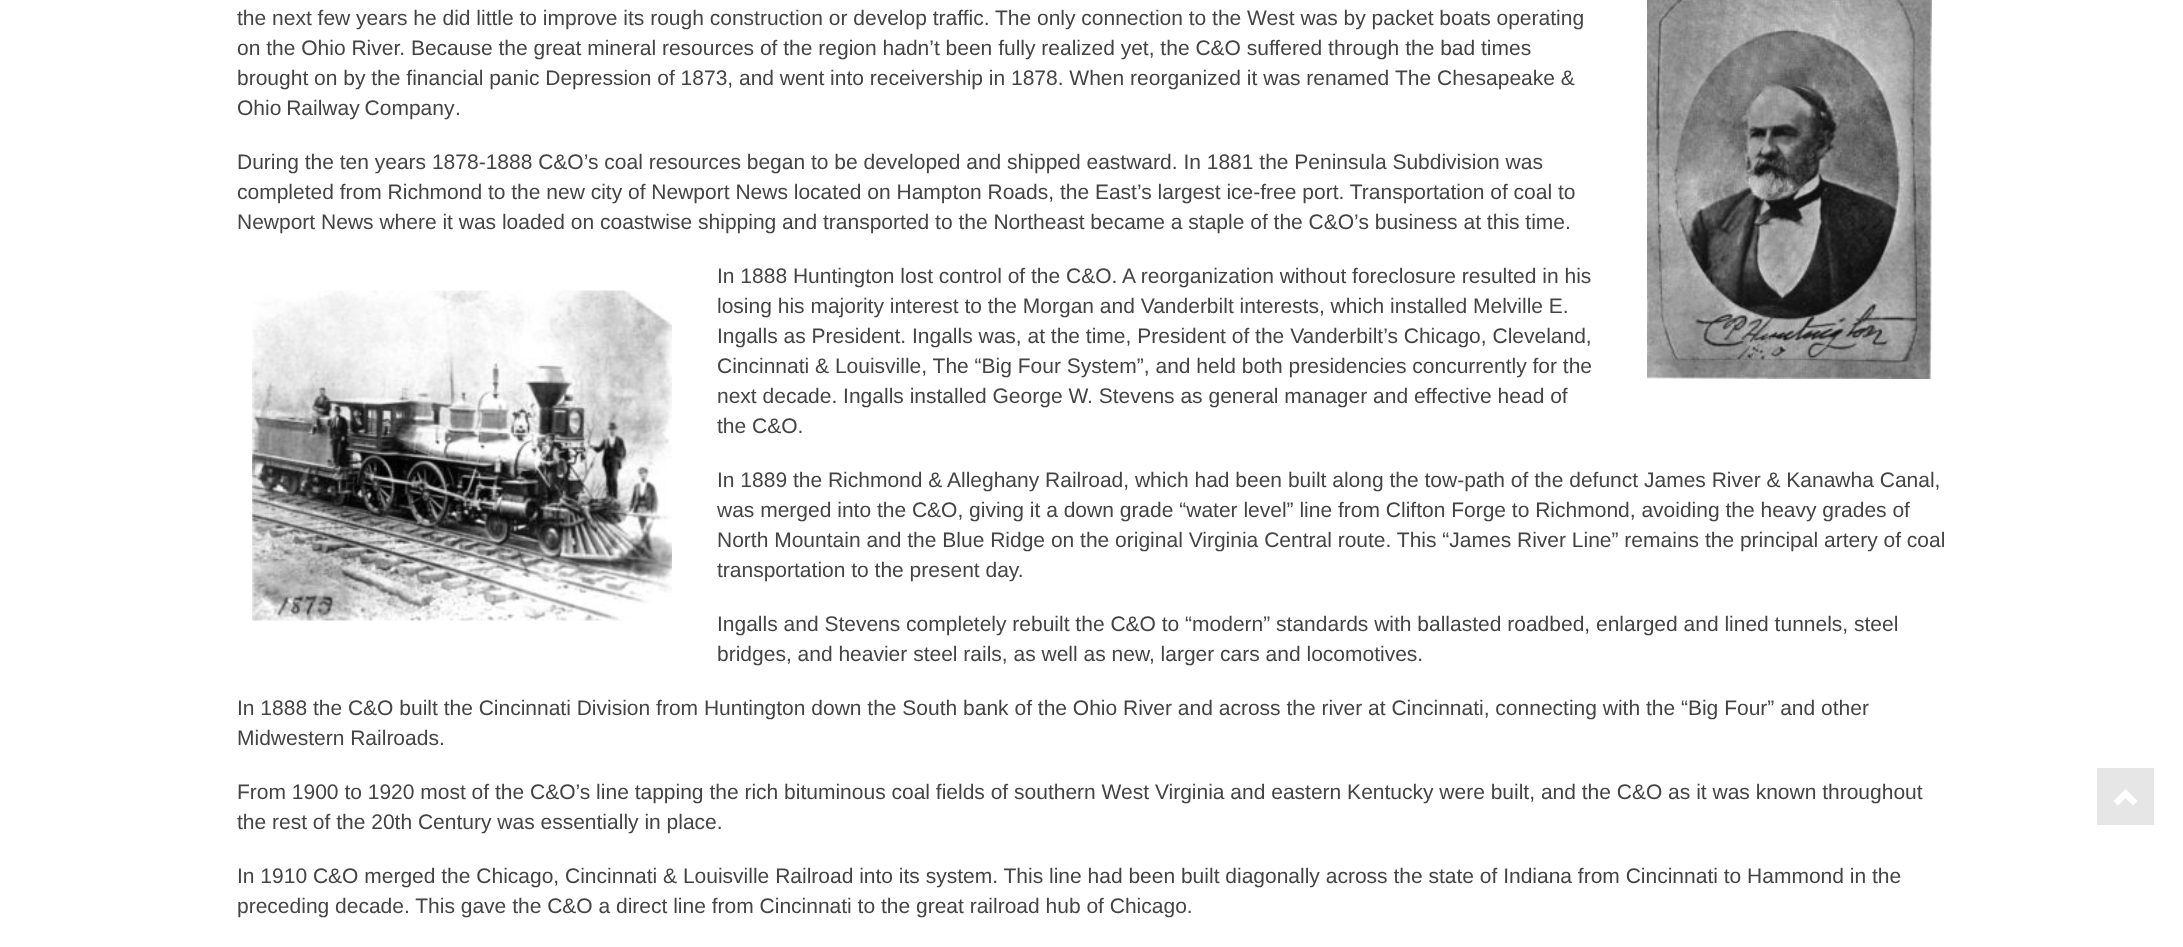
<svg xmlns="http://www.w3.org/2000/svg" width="2183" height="947">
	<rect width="100%" height="100%" fill="#FFFFFF" />
	<text x="237" y="25" font-family="Liberation Sans" font-size="21" fill="#444444">the next few years he did little to improve its rough construction or develop traffic. The only connection to the West was by packet boats operating</text>
	<image x="1647" y="0" width="285" height="379" href="assets/img1.png" />
	<g font-family="Liberation Sans" font-size="21" fill="#444444">
		<text x="237" y="55">on the Ohio River. Because the great mineral resources of the region hadn’t been fully realized yet, the C&amp;O suffered through the bad times</text>
		<text x="237" y="85">brought on by the financial panic Depression of 1873, and went into receivership in 1878. When reorganized it was renamed</text>
		<text x="1395" y="85">The Chesapeake &amp;</text>
		<text x="237" y="115" word-spacing="-1">Ohio Railway Company</text>
		<text x="455" y="115">.</text>
		<text x="237" y="169">During the ten years 1878-1888 C&amp;O’s coal resources began to be developed and shipped eastward. In 1881 the Peninsula Subdivision was</text>
		<text x="237" y="199">completed from Richmond to the new city of Newport News located on Hampton Roads, the East’s largest ice-free port. Transportation of coal to</text>
		<text x="237" y="229">Newport News where it was loaded on coastwise shipping and transported to the Northeast became a staple of the C&amp;O’s business at this time.</text>
		<text x="717" y="283">In 1888 Huntington lost control of the C&amp;O. A reorganization without foreclosure resulted in his</text>
	</g>
	<image x="252" y="290" width="420" height="331" href="assets/img2.png" />
	<g font-family="Liberation Sans" font-size="21" fill="#444444">
		<text x="717" y="313">losing his majority interest to the Morgan and Vanderbilt interests, which installed Melville E.</text>
		<text x="717" y="343">Ingalls as President. Ingalls was, at the time, President of the Vanderbilt’s Chicago, Cleveland,</text>
		<text x="717" y="373">Cincinnati &amp; Louisville, The “Big Four System”, and held both presidencies concurrently for the</text>
		<text x="717" y="403">next decade. Ingalls installed George W. Stevens as general manager and effective head of</text>
		<text x="717" y="433">the C&amp;O.</text>
		<text x="717" y="487">In 1889 the Richmond &amp; Alleghany Railroad, which had been built along the tow-path of the defunct James River &amp; Kanawha Canal,</text>
		<text x="717" y="517">was merged into the C&amp;O, giving it a down grade “water level” line from Clifton Forge to Richmond, avoiding the heavy grades of</text>
		<text x="717" y="547">North Mountain and the Blue Ridge on the original Virginia Central route. This “James River Line” remains the principal artery of coal</text>
		<text x="717" y="577">transportation to the present day.</text>
		<text x="717" y="631">Ingalls and Stevens completely rebuilt the C&amp;O to “modern” standards with ballasted roadbed, enlarged and lined tunnels, steel</text>
		<text x="717" y="661">bridges, and heavier steel rails, as well as new, larger cars and locomotives.</text>
		<text x="237" y="715">In 1888 the C&amp;O built the Cincinnati Division from Huntington down the South bank of the Ohio River and across the river at Cincinnati, connecting with the “Big Four” and other</text>
		<text x="237" y="745">Midwestern Railroads.</text>
		<text x="237" y="799">From 1900 to 1920 most of the C&amp;O’s line tapping the rich bituminous coal fields of southern West Virginia and eastern Kentucky were built, and the C&amp;O as it was known throughout</text>
		<text x="237" y="829">the rest of the 20th Century was essentially in place.</text>
		<text x="237" y="883">In 1910 C&amp;O merged the Chicago, Cincinnati &amp; Louisville Railroad into its system. This line had been built diagonally across the state of Indiana from Cincinnati to Hammond in the</text>
		<text x="237" y="913">preceding decade. This gave the C&amp;O a direct line from Cincinnati to the great railroad hub of Chicago.</text>
	</g>
	<rect x="2097" y="768" width="57" height="57" fill="#E6E6E6" />
	<path d="M2113.5 801L2118 805.5L2125.5 798L2133 805.5L2137.5 801L2125.5 789Z" fill="#FFFFFF" />
</svg>
